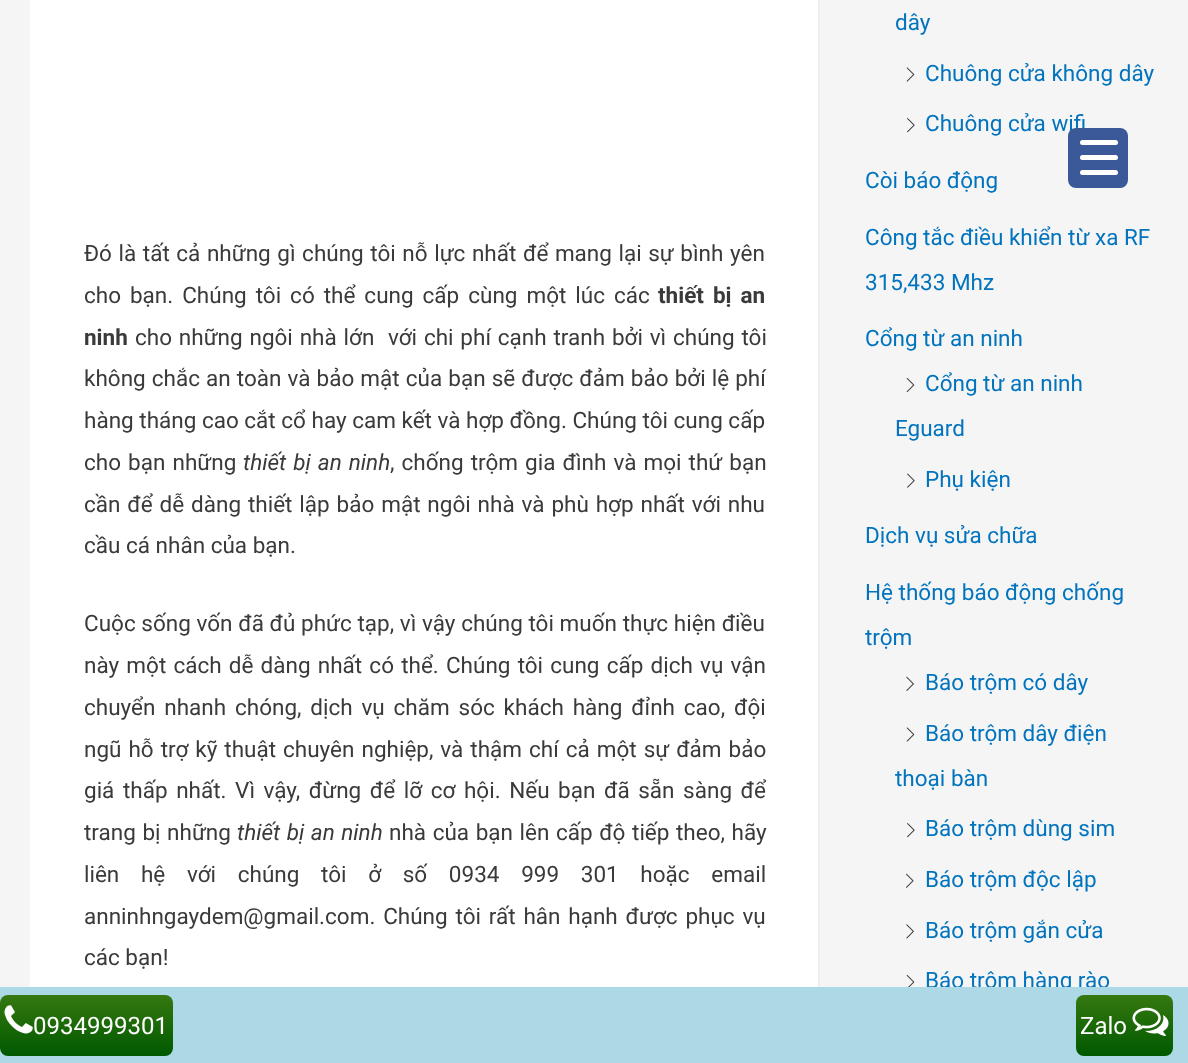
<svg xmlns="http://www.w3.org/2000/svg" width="1188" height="1063">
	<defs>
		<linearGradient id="g1" gradientUnits="userSpaceOnUse" x1="86" y1="995" x2="86" y2="1056"><stop offset="0" stop-color="#36780F" /><stop offset="1" stop-color="#005900" /></linearGradient>
		<linearGradient id="g2" gradientUnits="userSpaceOnUse" x1="1124" y1="995" x2="1124" y2="1056"><stop offset="0" stop-color="#36780F" /><stop offset="1" stop-color="#005900" /></linearGradient>
	</defs>
	<rect width="100%" height="100%" fill="#F5F5F5" />
	<rect x="30" y="0" width="788" height="987" fill="#FFFFFF" />
	<g font-family="Roboto" font-size="22.5" fill="#3A3A3A">
		<text x="84" y="261" word-spacing="1">Đó là tất cả những gì chúng tôi nỗ lực nhất để mang lại sự bình yên</text>
		<text x="84" y="303" word-spacing="3.4">cho bạn. Chúng tôi có thể cung cấp cùng một lúc các</text>
	</g>
	<g font-family="Roboto" font-size="22.5" font-weight="700" fill="#3A3A3A">
		<text x="658" y="303" word-spacing="3.4">thiết bị an</text>
		<text x="84" y="345">ninh</text>
	</g>
	<g font-family="Roboto" font-size="22.5" fill="#3A3A3A">
		<text x="135" y="345" word-spacing="1.25" xml:space="preserve">cho những ngôi nhà lớn  với chi phí cạnh tranh bởi vì chúng tôi</text>
		<text x="84" y="386" word-spacing="0.5">không chắc an toàn và bảo mật của bạn sẽ được đảm bảo bởi lệ phí</text>
		<text x="84" y="428">hàng tháng cao cắt cổ hay cam kết và hợp đồng. Chúng tôi cung cấp</text>
		<text x="84" y="470" word-spacing="1.5">cho bạn những</text>
	</g>
	<text x="243" y="470" word-spacing="1.5" font-family="Roboto" font-size="22.5" font-style="italic" fill="#3A3A3A">thiết bị an ninh</text>
	<g font-family="Roboto" font-size="22.5" fill="#3A3A3A">
		<text x="390" y="470" word-spacing="1.5">, chống trộm gia đình và mọi thứ bạn</text>
		<text x="84" y="512" word-spacing="1.3">cần để dễ dàng thiết lập bảo mật ngôi nhà và phù hợp nhất với nhu</text>
		<text x="84" y="553">cầu cá nhân của bạn.</text>
		<text x="84" y="631" word-spacing="0.1">Cuộc sống vốn đã đủ phức tạp, vì vậy chúng tôi muốn thực hiện điều</text>
		<text x="84" y="673" word-spacing="1.6">này một cách dễ dàng nhất có thể. Chúng tôi cung cấp dịch vụ vận</text>
		<text x="84" y="715" word-spacing="3.25">chuyển nhanh chóng, dịch vụ chăm sóc khách hàng đỉnh cao, đội</text>
		<text x="84" y="757" word-spacing="1.4">ngũ hỗ trợ kỹ thuật chuyên nghiệp, và thậm chí cả một sự đảm bảo</text>
		<text x="84" y="798" word-spacing="3">giá thấp nhất. Vì vậy, đừng để lỡ cơ hội. Nếu bạn đã sẵn sàng để</text>
		<text x="84" y="840" word-spacing="1">trang bị những</text>
	</g>
	<text x="237" y="840" word-spacing="1" font-family="Roboto" font-size="22.5" font-style="italic" fill="#3A3A3A">thiết bị an ninh</text>
	<g font-family="Roboto" font-size="22.5" fill="#3A3A3A">
		<text x="389" y="840" word-spacing="1">nhà của bạn lên cấp độ tiếp theo, hãy</text>
		<text x="84" y="882" word-spacing="16.1">liên hệ với chúng tôi ở số 0934 999 301 hoặc email</text>
		<text x="84" y="924" word-spacing="2.25">anninhngaydem@gmail.com. Chúng tôi rất hân hạnh được phục vụ</text>
		<text x="84" y="965">các bạn!</text>
	</g>
	<rect x="818" y="0" width="2" height="987" fill="#EEEEEE" />
	<text x="895" y="30" font-family="Roboto" font-size="22.5" fill="#0274BE">dây</text>
	<image x="906" y="67" width="9" height="15" href="assets/img1.png" />
	<text x="925" y="81" font-family="Roboto" font-size="22.5" fill="#0274BE">Chuông cửa không dây</text>
	<image x="907" y="118" width="8" height="15" href="assets/img2.png" />
	<g font-family="Roboto" font-size="22.5" fill="#0274BE">
		<text x="925" y="131">Chuông cửa wifi</text>
		<text x="865" y="188">Còi báo động</text>
		<text x="865" y="245">Công tắc điều khiển từ xa RF</text>
		<text x="865" y="290">315,433 Mhz</text>
		<text x="865" y="346">Cổng từ an ninh</text>
	</g>
	<image x="906" y="378" width="9" height="15" href="assets/img3.png" />
	<g font-family="Roboto" font-size="22.5" fill="#0274BE">
		<text x="925" y="391">Cổng từ an ninh</text>
		<text x="895" y="436">Eguard</text>
	</g>
	<image x="907" y="473" width="8" height="15" href="assets/img4.png" />
	<g font-family="Roboto" font-size="22.5" fill="#0274BE">
		<text x="925" y="487">Phụ kiện</text>
		<text x="865" y="543">Dịch vụ sửa chữa</text>
		<text x="865" y="600">Hệ thống báo động chống</text>
		<text x="865" y="645">trộm</text>
	</g>
	<image x="906" y="676" width="8" height="15" href="assets/img5.png" />
	<text x="925" y="690" font-family="Roboto" font-size="22.5" fill="#0274BE">Báo trộm có dây</text>
	<image x="906" y="727" width="9" height="15" href="assets/img1.png" />
	<g font-family="Roboto" font-size="22.5" fill="#0274BE">
		<text x="925" y="741">Báo trộm dây điện</text>
		<text x="895" y="786">thoại bàn</text>
	</g>
	<image x="907" y="823" width="8" height="15" href="assets/img2.png" />
	<text x="925" y="836" font-family="Roboto" font-size="22.5" fill="#0274BE">Báo trộm dùng sim</text>
	<image x="906" y="873" width="8" height="15" href="assets/img6.png" />
	<text x="925" y="887" font-family="Roboto" font-size="22.5" fill="#0274BE">Báo trộm độc lập</text>
	<image x="906" y="924" width="8" height="15" href="assets/img7.png" />
	<text x="925" y="938" font-family="Roboto" font-size="22.5" fill="#0274BE">Báo trộm gắn cửa</text>
	<image x="906" y="975" width="9" height="12" href="assets/img8.png" />
	<text x="925" y="988" font-family="Roboto" font-size="22.5" fill="#0274BE">Báo trộm hàng rào</text>
	<rect x="1068" y="128" width="60" height="60" rx="8" fill="#3B5998" />
	<rect x="1080" y="155" width="38" height="5" rx="2.5" fill="#FFFFFF" />
	<rect x="1080" y="140" width="38" height="5" rx="2.5" fill="#FFFFFF" />
	<rect x="1080" y="170" width="38" height="5" rx="2.5" fill="#FFFFFF" />
	<rect x="0" y="987" width="1188" height="76" fill="#ADD8E6" />
	<rect x="0" y="995" width="173" height="61" rx="8" fill="url(#g1)" />
	<image x="4" y="1005" width="29" height="29" href="assets/img9.png" />
	<text x="33" y="1034" font-family="Roboto" font-size="24" fill="#FFFFFF">0934999301</text>
	<rect x="1076" y="995" width="97" height="61" rx="8" fill="url(#g2)" />
	<text x="1080" y="1034" font-family="Roboto" font-size="24" fill="#FFFFFF">Zalo</text>
	<image x="1132" y="1007" width="37" height="29" href="assets/img10.png" />
</svg>
